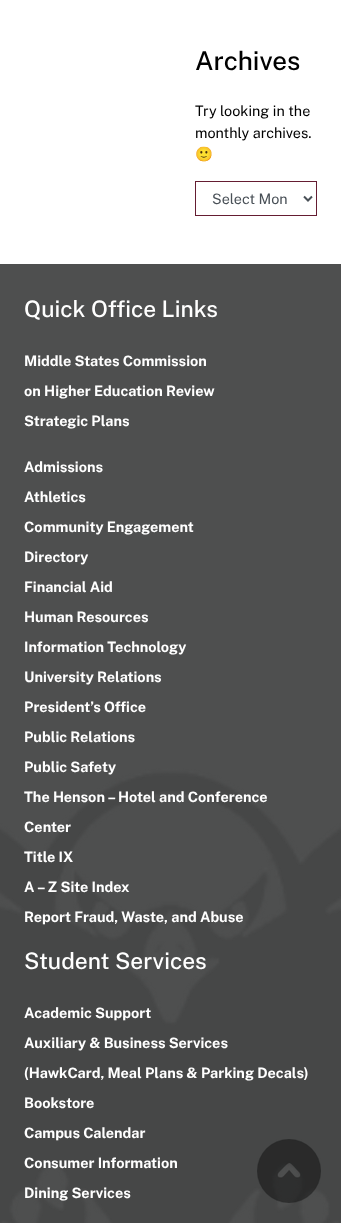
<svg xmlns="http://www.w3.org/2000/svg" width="341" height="1223">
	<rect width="100%" height="100%" fill="#FFFFFF" />
	<text x="195" y="70" font-family="Public Sans" font-size="26" font-weight="500" fill="#000000">Archives</text>
	<g font-family="Public Sans" font-size="14.4" fill="#000000">
		<text x="195" y="116">Try looking in the</text>
		<text x="195" y="138">monthly archives.</text>
	</g>
	<text x="195" y="159" font-family="Noto Color Emoji" font-size="14.4" fill="#000000">🙂</text>
	<rect x="195.5" y="181.5" width="121" height="34" fill="none" stroke="#651D32" />
	<path d="M304 196.5L308 200.5L312 196.5" fill="none" stroke="#495057" stroke-width="2" />
	<text x="212" y="204" font-family="Public Sans" font-size="14.4" fill="#495057">Select Mon</text>
	<rect x="0" y="264" width="341" height="959" fill="#4E4F4F" />
	<text x="24" y="317" font-family="Public Sans" font-size="22.75" font-weight="500" fill="#FFFFFF">Quick Office Links</text>
	<g font-family="Public Sans" font-size="14.4" font-weight="700" fill="#FFFFFF">
		<text x="24" y="366">Middle States Commission</text>
		<text x="24" y="396">on Higher Education Review</text>
		<text x="24" y="426">Strategic Plans</text>
		<text x="24" y="472">Admissions</text>
		<text x="24" y="502">Athletics</text>
		<text x="24" y="532">Community Engagement</text>
		<text x="24" y="562">Directory</text>
		<text x="24" y="592">Financial Aid</text>
		<text x="24" y="622">Human Resources</text>
		<text x="24" y="652">Information Technology</text>
		<text x="24" y="682">University Relations</text>
		<text x="24" y="712">President’s Office</text>
		<text x="24" y="742">Public Relations</text>
	</g>
	<image x="0" y="768" width="341" height="455" href="assets/img1.png" />
	<g font-family="Public Sans" font-size="14.4" font-weight="700" fill="#FFFFFF">
		<text x="24" y="772">Public Safety</text>
		<text x="24" y="802">The Henson – Hotel and Conference</text>
		<text x="24" y="832">Center</text>
		<text x="24" y="862">Title IX</text>
		<text x="24" y="892">A – Z Site Index</text>
		<text x="24" y="922">Report Fraud, Waste, and Abuse</text>
	</g>
	<text x="24" y="969" font-family="Public Sans" font-size="22.75" font-weight="500" fill="#FFFFFF">Student Services</text>
	<g font-family="Public Sans" font-size="14.4" font-weight="700" fill="#FFFFFF">
		<text x="24" y="1018">Academic Support</text>
		<text x="24" y="1048">Auxiliary &amp; Business Services</text>
		<text x="24" y="1078">(HawkCard, Meal Plans &amp; Parking Decals)</text>
		<text x="24" y="1108">Bookstore</text>
		<text x="24" y="1138">Campus Calendar</text>
		<text x="24" y="1168">Consumer Information</text>
		<text x="24" y="1198">Dining Services</text>
	</g>
	<image x="257" y="1139" width="64" height="64" href="assets/img2.png" />
</svg>
